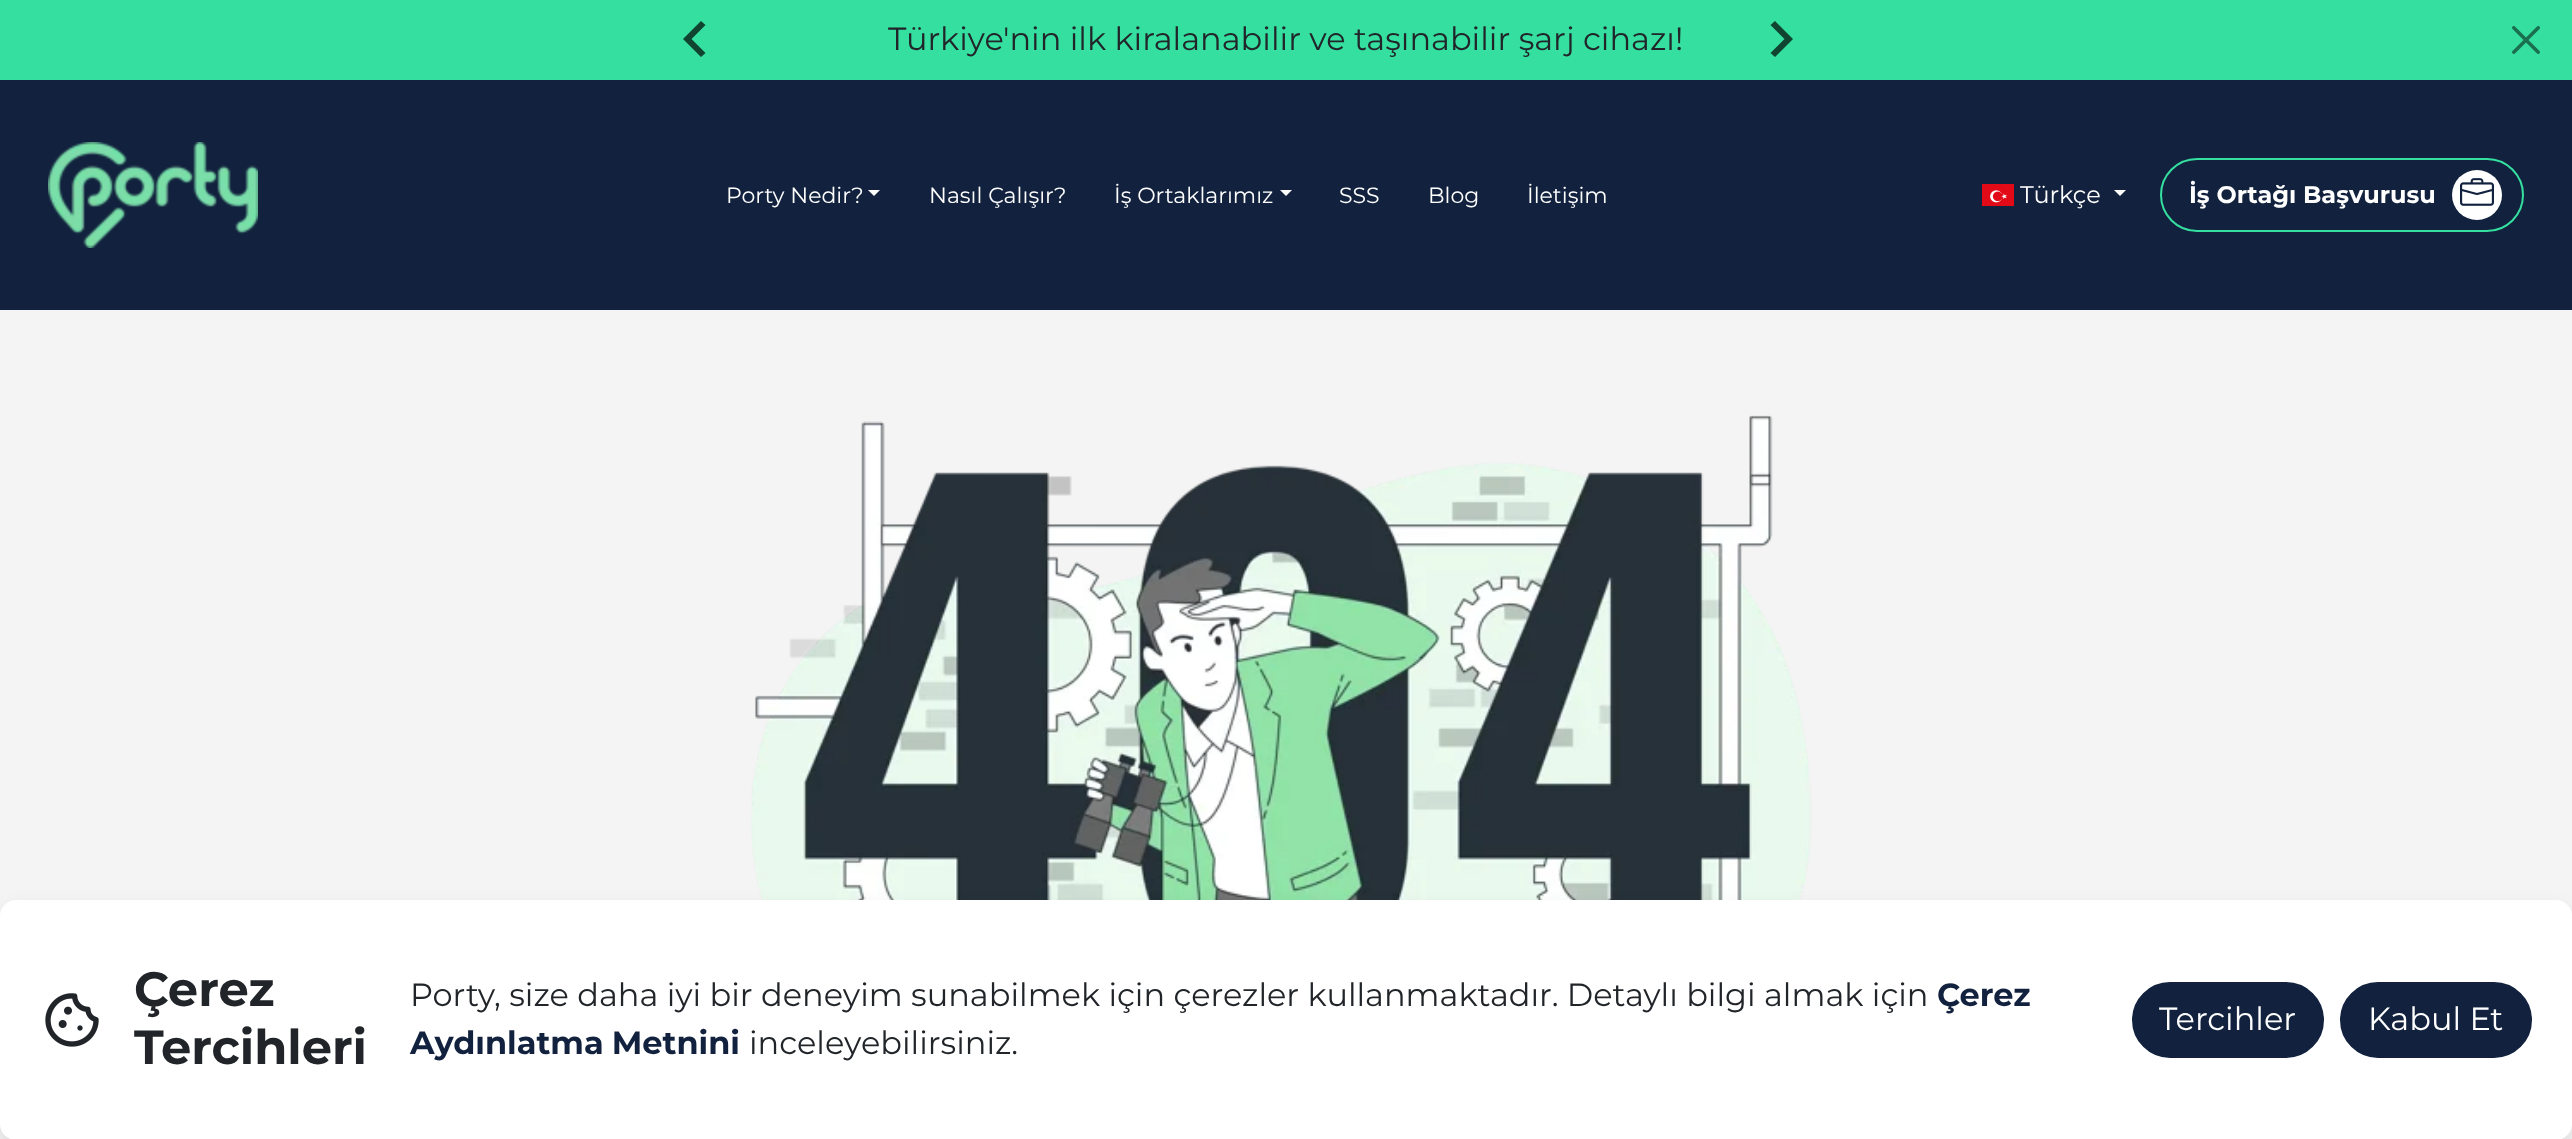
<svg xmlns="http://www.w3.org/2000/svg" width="2572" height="1139">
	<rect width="100%" height="100%" fill="#F4F4F4" />
	<rect x="0" y="0" width="2572" height="80" fill="#35DFA0" />
	<path d="M701 21L705.5 25L691.5 39L705.5 53L701 57L683 39Z" fill="#104330" />
	<path d="M1775 21L1770.5 25L1784.5 39L1770.5 53L1775 57L1793 39Z" fill="#104330" />
	<text x="888" y="50" font-family="Montserrat" font-size="32" fill="#212529">Türkiye'nin ilk kiralanabilir ve taşınabilir şarj cihazı!</text>
	<image x="2512" y="26" width="28" height="28" href="assets/img1.png" />
	<rect x="0" y="80" width="2572" height="230" fill="#12223E" />
	<image x="48" y="142" width="210" height="106" href="assets/img2.png" />
	<text x="726" y="203" font-family="Montserrat" font-size="22" fill="#FFFFFF">Porty Nedir?</text>
	<path d="M868 190H880L874 196Z" fill="#FFFFFF" />
	<g font-family="Montserrat" font-size="22" fill="#FFFFFF">
		<text x="929" y="203">Nasıl Çalışır?</text>
		<text x="1114" y="203">İş Ortaklarımız</text>
	</g>
	<path d="M1280 190H1292L1286 196Z" fill="#FFFFFF" />
	<g font-family="Montserrat" font-size="22" fill="#FFFFFF">
		<text x="1339" y="203">SSS</text>
		<text x="1428" y="203">Blog</text>
		<text x="1527" y="203">İletişim</text>
	</g>
	<image x="1982" y="184" width="32" height="22" href="assets/img3.png" />
	<text x="2020" y="203" font-family="Montserrat" font-size="24" fill="#FFFFFF">Türkçe</text>
	<path d="M2114 190H2126L2120 196Z" fill="#FFFFFF" />
	<rect x="2161" y="159" width="362" height="72" rx="36" fill="none" stroke="#35DFA0" stroke-width="2" />
	<text x="2189" y="203" font-family="Montserrat" font-size="24" font-weight="700" fill="#FFFFFF">İş Ortağı Başvurusu</text>
	<circle cx="2477" cy="195" r="25" fill="#FFFFFF" />
	<image x="2460" y="178" width="34" height="28" href="assets/img4.png" />
	<image x="751" y="415" width="1061" height="485" href="assets/img5.png" />
	<rect x="0" y="910" width="2572" height="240" rx="16" fill="#000000" fill-opacity="0.1" filter="blur(10px)" />
	<rect x="0" y="900" width="2572" height="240" rx="16" fill="#FFFFFF" />
	<image x="45" y="993" width="54" height="54" href="assets/img6.png" />
	<g font-family="Montserrat" font-size="48" font-weight="700" fill="#212529">
		<text x="134" y="1006">Çerez</text>
		<text x="134" y="1064">Tercihleri</text>
	</g>
	<text x="410" y="1006" font-family="Montserrat" font-size="32" fill="#212529">Porty, size daha iyi bir deneyim sunabilmek için çerezler kullanmaktadır. Detaylı bilgi almak için</text>
	<g font-family="Montserrat" font-size="32" font-weight="700" fill="#12223E">
		<text x="1937" y="1006">Çerez</text>
		<text x="410" y="1054" word-spacing="-1">Aydınlatma Metnini</text>
	</g>
	<text x="749" y="1054" font-family="Montserrat" font-size="32" fill="#212529">inceleyebilirsiniz.</text>
	<rect x="2133" y="983" width="190" height="74" rx="37" fill="#12223E" stroke="#12223E" stroke-width="2" />
	<text x="2159" y="1030" font-family="Montserrat" font-size="32" fill="#FFFFFF">Tercihler</text>
	<rect x="2341" y="983" width="190" height="74" rx="37" fill="#12223E" stroke="#12223E" stroke-width="2" />
	<text x="2368" y="1030" font-family="Montserrat" font-size="32" fill="#FFFFFF">Kabul Et</text>
</svg>
